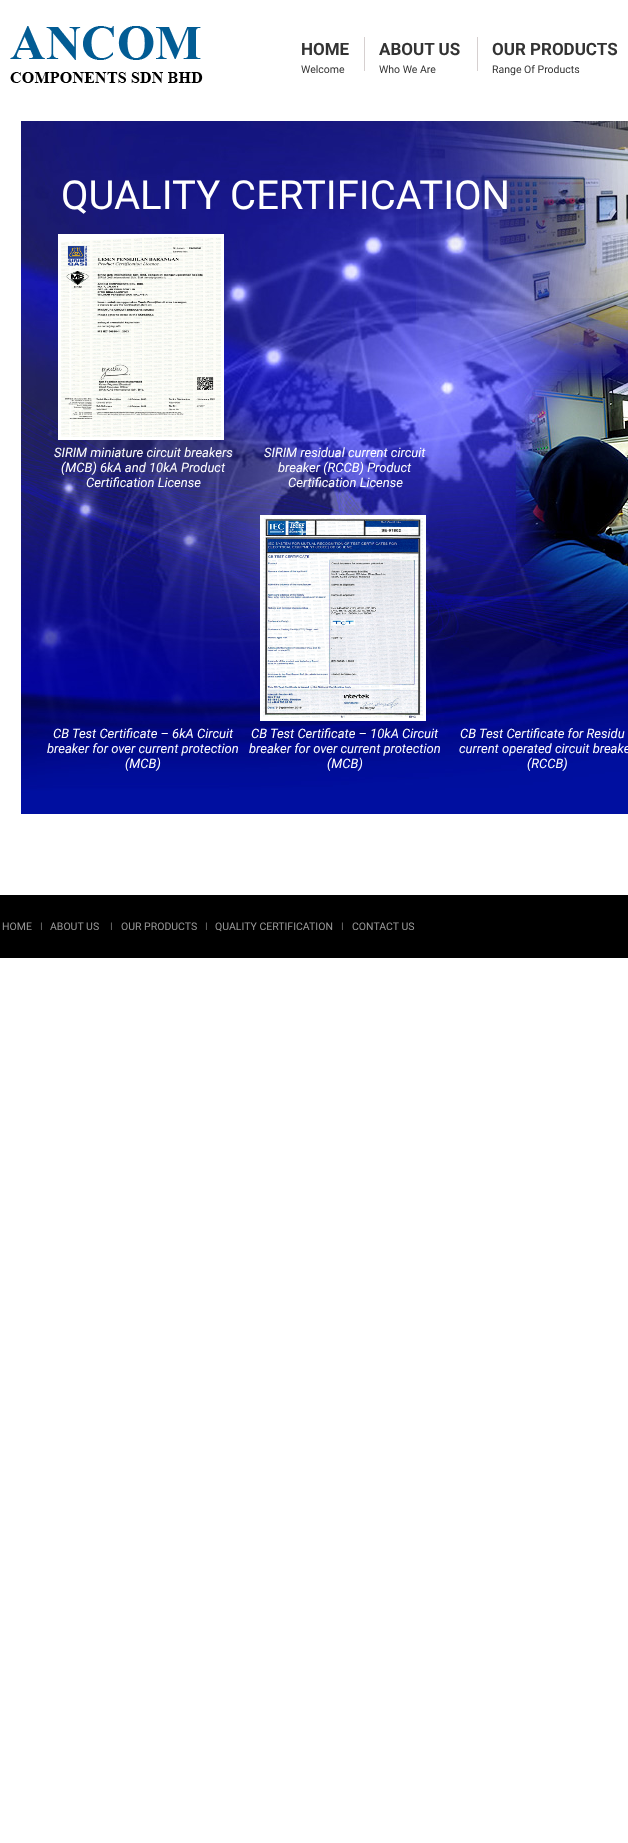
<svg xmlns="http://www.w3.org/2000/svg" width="628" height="1843">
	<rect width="100%" height="100%" fill="#FFFFFF" />
	<image x="10" y="26" width="193" height="57" href="assets/img1.png" />
	<text x="301" y="55" font-family="Roboto" font-size="17" font-weight="700" fill="#333333">HOME</text>
	<text x="301" y="73" font-family="Roboto" font-size="10.5" fill="#333333">Welcome</text>
	<rect x="364" y="37" width="1" height="34" fill="#D6D0D0" />
	<text x="379" y="55" font-family="Roboto" font-size="17" font-weight="700" fill="#333333">ABOUT US</text>
	<text x="379" y="73" font-family="Roboto" font-size="10.5" fill="#333333">Who We Are</text>
	<rect x="477" y="37" width="1" height="34" fill="#D6D0D0" />
	<text x="492" y="55" font-family="Roboto" font-size="17" font-weight="700" fill="#333333">OUR PRODUCTS</text>
	<text x="492" y="73" font-family="Roboto" font-size="10.5" fill="#333333">Range Of Products</text>
	<image x="21" y="121" width="607" height="693" href="assets/img2.png" />
	<text x="61" y="209" font-family="Roboto" font-size="40" fill="#FFFFFF">QUALITY CERTIFICATION</text>
	<rect x="59.5" y="235.5" width="163" height="203" fill="none" stroke="#FFFFFF" stroke-width="3" />
	<image x="61" y="237" width="160" height="200" href="assets/img3.png" />
	<g font-family="Roboto" font-size="13" font-style="italic" fill="#FFFFFF">
		<text x="54" y="457">SIRIM miniature circuit breakers</text>
		<text x="61" y="472">(MCB) 6kA and 10kA Product</text>
		<text x="86" y="487">Certification License</text>
		<text x="264" y="457">SIRIM residual current circuit</text>
		<text x="278" y="472">breaker (RCCB) Product</text>
		<text x="288" y="487">Certification License</text>
		<text x="53" y="738">CB Test Certificate – 6kA Circuit</text>
		<text x="47" y="753">breaker for over current protection</text>
		<text x="125" y="768">(MCB)</text>
	</g>
	<rect x="261.5" y="516.5" width="163" height="203" fill="none" stroke="#FFFFFF" stroke-width="3" />
	<image x="263" y="518" width="160" height="200" href="assets/img4.png" />
	<g font-family="Roboto" font-size="13" font-style="italic" fill="#FFFFFF">
		<text x="251" y="738">CB Test Certificate – 10kA Circuit</text>
		<text x="249" y="753">breaker for over current protection</text>
		<text x="327" y="768">(MCB)</text>
		<text x="460" y="738">CB Test Certificate for Residu</text>
		<text x="459" y="753">current operated circuit breake</text>
		<text x="527" y="768">(RCCB)</text>
	</g>
	<rect x="0" y="895" width="628" height="63" fill="#000000" />
	<text x="2" y="930" font-family="Roboto" font-size="10.5" fill="#999999">HOME</text>
	<text x="40" y="930" font-family="Roboto" font-size="10.5" fill="#666666">I</text>
	<text x="50" y="930" font-family="Roboto" font-size="10.5" fill="#999999">ABOUT US</text>
	<text x="110" y="930" font-family="Roboto" font-size="10.5" fill="#666666">I</text>
	<text x="121" y="930" font-family="Roboto" font-size="10.5" fill="#999999">OUR PRODUCTS</text>
	<text x="205" y="930" font-family="Roboto" font-size="10.5" fill="#666666">I</text>
	<text x="215" y="930" font-family="Roboto" font-size="10.5" fill="#999999">QUALITY CERTIFICATION</text>
	<text x="341" y="930" font-family="Roboto" font-size="10.5" fill="#666666">I</text>
	<text x="352" y="930" font-family="Roboto" font-size="10.5" fill="#999999">CONTACT US</text>
</svg>
